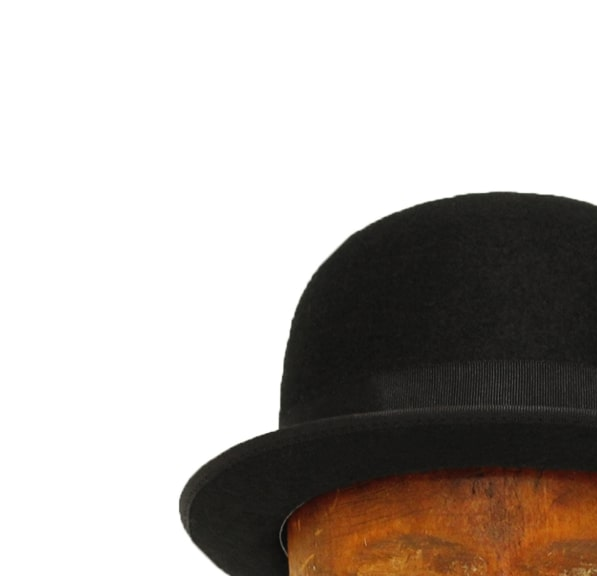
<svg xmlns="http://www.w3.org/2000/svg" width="597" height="576">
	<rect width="100%" height="100%" fill="#FFFFFF" />
	<image x="0" y="0" width="597" height="576" href="assets/img1.png" />
</svg>
